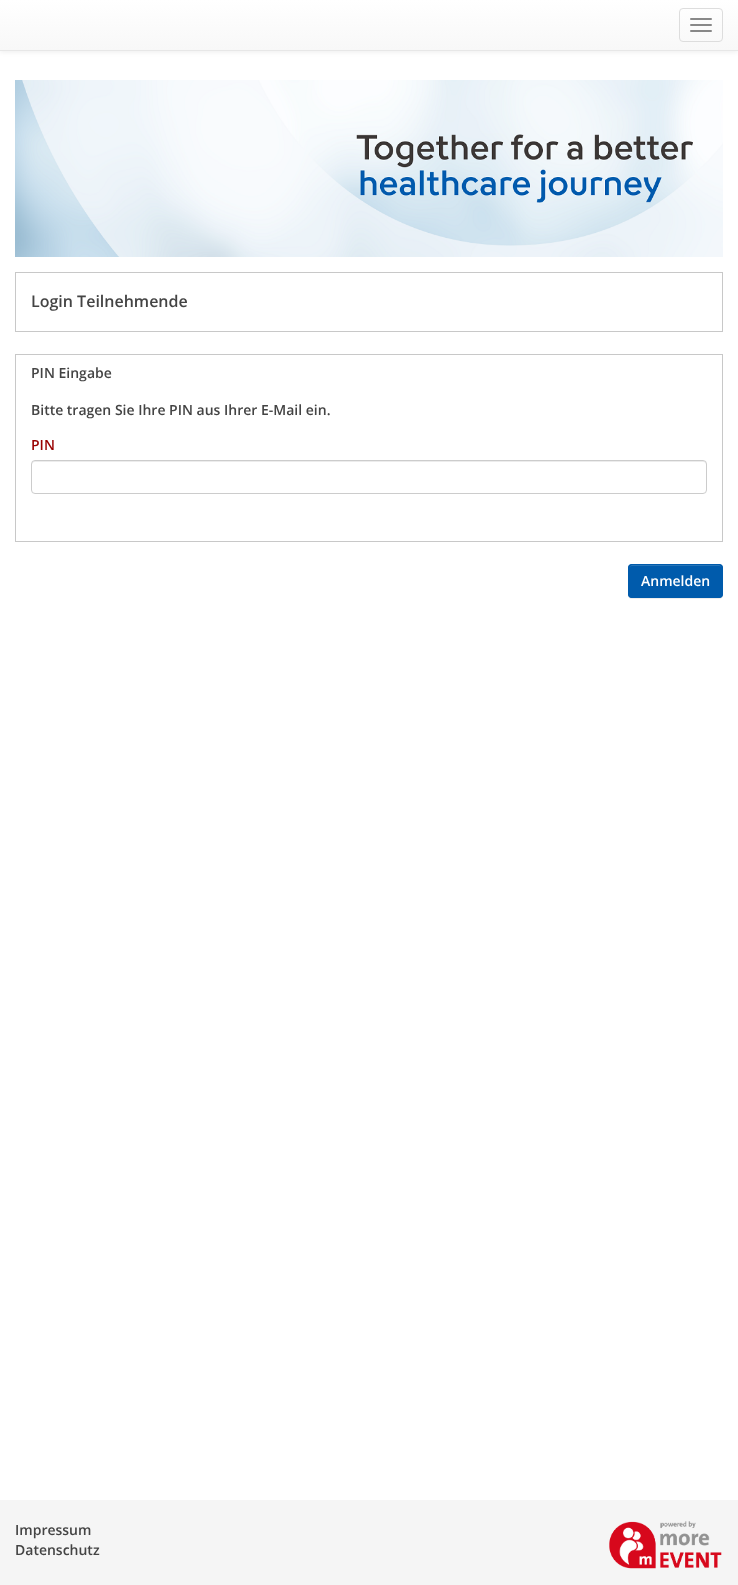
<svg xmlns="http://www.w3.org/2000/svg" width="738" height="1585">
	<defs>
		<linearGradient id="g1" gradientUnits="userSpaceOnUse" x1="369" y1="0" x2="369" y2="50"><stop offset="0" stop-color="#FFFFFF" /><stop offset="1" stop-color="#F8F8F8" /></linearGradient>
	</defs>
	<rect width="100%" height="100%" fill="#FFFFFF" />
	<rect x="0" y="1" width="738" height="51" fill="#000000" fill-opacity="0.07" filter="blur(2.5px)" />
	<rect x="0" y="0" width="738" height="50" fill="url(#g1)" />
	<rect x="0" y="50" width="738" height="1" fill="#E7E7E7" />
	<rect x="679.5" y="8.5" width="43" height="33" rx="3.5" fill="none" stroke="#DDDDDD" />
	<rect x="690" y="18" width="22" height="2" rx="1" fill="#888888" />
	<rect x="690" y="24" width="22" height="2" rx="1" fill="#888888" />
	<rect x="690" y="30" width="22" height="2" rx="1" fill="#888888" />
	<image x="15" y="80" width="708" height="177" href="assets/img1.png" />
	<rect x="15.5" y="272.5" width="707" height="59" fill="none" stroke="#C8C8C8" />
	<text x="31" y="307" font-family="Open Sans" font-size="16" font-weight="600" fill="#444444">Login Teilnehmende</text>
	<rect x="15.5" y="354.5" width="707" height="187" fill="none" stroke="#C8C8C8" />
	<g font-family="Open Sans" font-size="14" font-weight="600" fill="#444444">
		<text x="31" y="378">PIN Eingabe</text>
		<text x="31" y="415">Bitte tragen Sie Ihre PIN aus Ihrer E-Mail ein.</text>
	</g>
	<text x="31" y="450" font-family="Open Sans" font-size="14" font-weight="600" fill="#990000">PIN</text>
	<path d="M35 462H703C705 462 706 463 706 465V464C706 462 705 461 703 461H35C33 461 32 462 32 464V465C32 463 33 462 35 462Z" fill="#ECECEC" />
	<rect x="31.5" y="460.5" width="675" height="33" rx="3.5" fill="none" stroke="#CCCCCC" />
	<rect x="628" y="565" width="95" height="34" rx="4" fill="#000000" fill-opacity="0.07" filter="blur(0.5px)" />
	<rect x="628" y="564" width="95" height="34" rx="4" fill="#005BAC" />
	<path d="M632 566H719C721 566 722 567 722 569C722 561 708 565 704 565H646C643 565 629 561 629 569C629 567 630 566 632 566Z" fill="#2674B8" />
	<rect x="628.5" y="564.5" width="94" height="33" rx="3.5" fill="none" stroke="#005BAC" />
	<text x="641" y="586" font-family="Open Sans" font-size="14" font-weight="600" fill="#FFFFFF">Anmelden</text>
	<rect x="0" y="1500" width="738" height="85" fill="#F5F5F5" />
	<g font-family="Open Sans" font-size="14" font-weight="600" fill="#444444">
		<text x="15" y="1535">Impressum</text>
		<text x="15" y="1555">Datenschutz</text>
	</g>
	<image x="609" y="1521" width="113" height="48" href="assets/img2.png" />
</svg>
